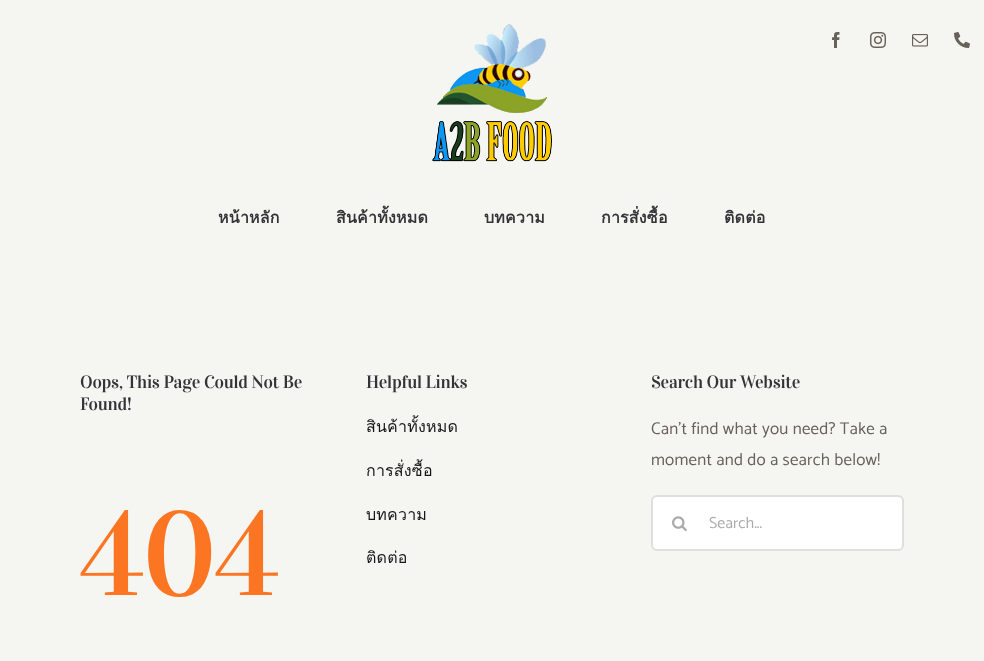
<svg xmlns="http://www.w3.org/2000/svg" width="984" height="661">
	<rect width="100%" height="100%" fill="#F5F5F1" />
	<image x="432" y="24" width="120" height="138" href="assets/img1.png" />
	<image x="832" y="32" width="8" height="16" href="assets/img2.png" />
	<image x="870" y="32" width="16" height="16" href="assets/img3.png" />
	<image x="912" y="34" width="16" height="13" href="assets/img4.png" />
	<image x="954" y="32" width="16" height="16" href="assets/img5.png" />
	<g font-family="Loma" font-size="16" font-weight="700" letter-spacing="0.2" fill="#333338">
		<text x="218" y="223">หน้าหลัก</text>
		<text x="336" y="223">สินค้าทั้งหมด</text>
		<text x="484" y="223">บทความ</text>
		<text x="601" y="223">การสั่งซื้อ</text>
		<text x="724" y="223">ติดต่อ</text>
	</g>
	<g font-family="Vidaloka" font-size="18" letter-spacing="-0.25" fill="#333338">
		<text x="80" y="388">Oops, This Page Could Not Be</text>
		<text x="80" y="410">Found!</text>
	</g>
	<text x="80" y="595" font-family="Vidaloka" font-size="119" letter-spacing="-2" fill="#FC7523">404</text>
	<text x="366" y="388" font-family="Vidaloka" font-size="18" letter-spacing="-0.25" fill="#333338">Helpful Links</text>
	<g font-family="Loma" font-size="16" letter-spacing="0.2" fill="#161616">
		<text x="366" y="432">สินค้าทั้งหมด</text>
		<text x="366" y="476">การสั่งซื้อ</text>
		<text x="366" y="520">บทความ</text>
		<text x="366" y="563">ติดต่อ</text>
	</g>
	<text x="651" y="388" font-family="Vidaloka" font-size="18" letter-spacing="-0.25" fill="#333338">Search Our Website</text>
	<g font-family="Catamaran" font-size="17" letter-spacing="0.2" fill="#67615A">
		<text x="651" y="434">Can’t find what you need? Take a</text>
		<text x="651" y="465">moment and do a search below!</text>
	</g>
	<rect x="652" y="496" width="251" height="54" rx="5" fill="#FFFFFF" stroke="#DFDFDD" stroke-width="2" />
	<image x="672" y="516" width="15" height="16" href="assets/img6.png" />
	<text x="709" y="528" font-family="Catamaran" font-size="16" fill="#ABABAB">Search...</text>
</svg>
